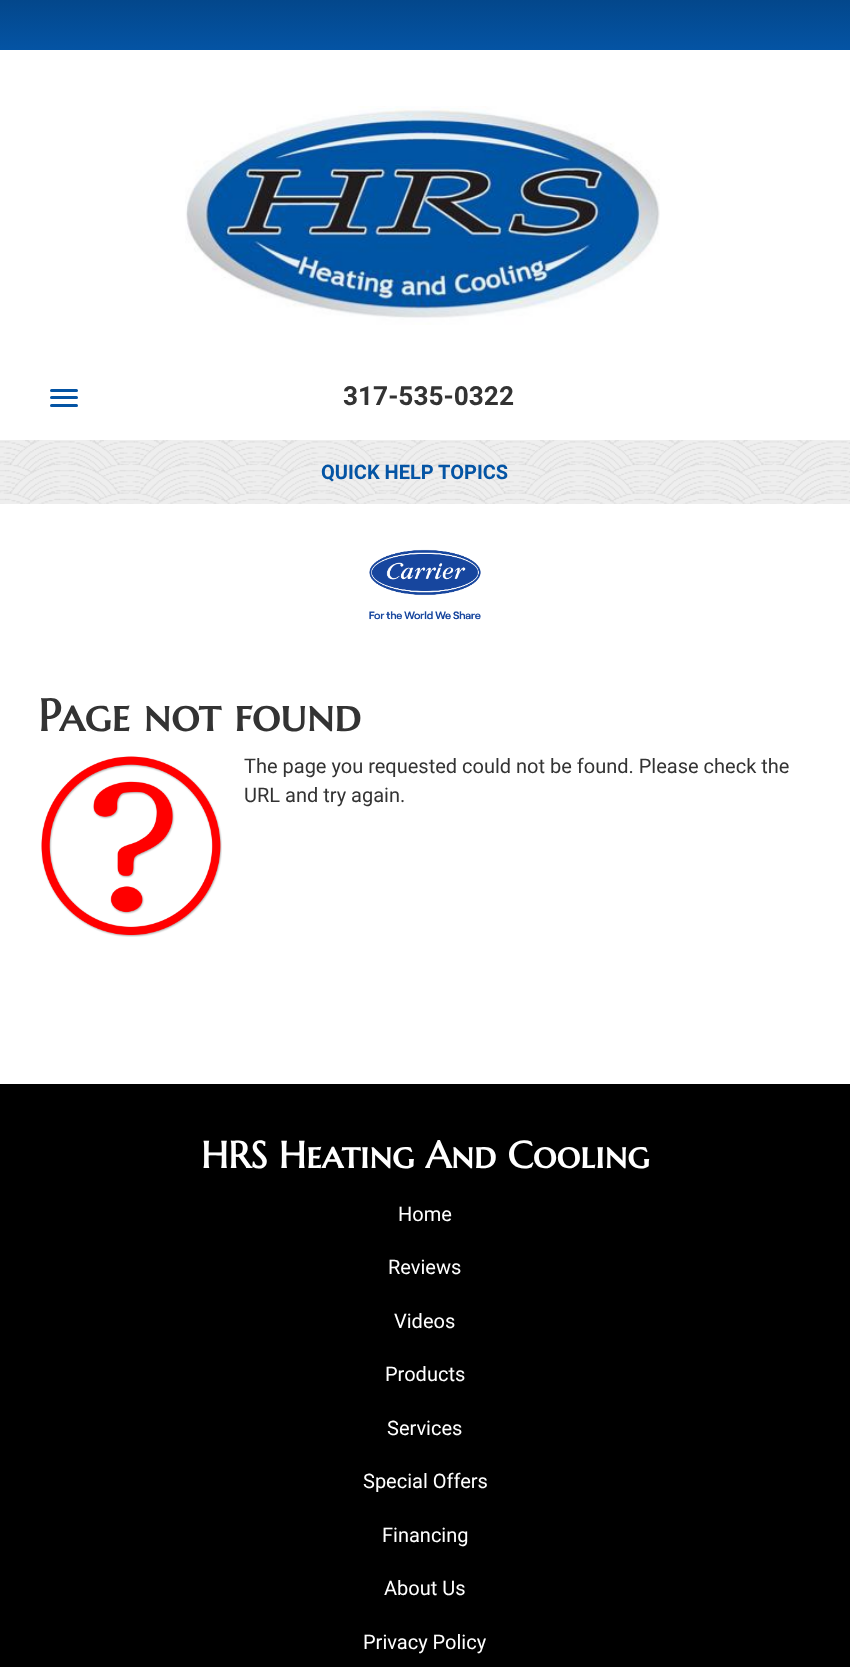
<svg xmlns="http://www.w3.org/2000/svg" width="850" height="1667">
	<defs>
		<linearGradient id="g1" gradientUnits="userSpaceOnUse" x1="425" y1="0" x2="425" y2="50"><stop offset="0" stop-color="#03478B" /><stop offset="1" stop-color="#0454A4" /></linearGradient>
	</defs>
	<rect width="100%" height="100%" fill="#FFFFFF" />
	<rect x="0" y="0" width="850" height="50" fill="url(#g1)" />
	<image x="185" y="106" width="475" height="219" href="assets/img1.png" />
	<rect x="50" y="389" width="28" height="3" rx="1.5" fill="#0454A4" />
	<rect x="50" y="396" width="28" height="3" rx="1.5" fill="#0454A4" />
	<rect x="50" y="404" width="28" height="3" rx="1.5" fill="#0454A4" />
	<text x="343" y="405" font-family="Roboto" font-size="26.25" font-weight="700" fill="#333333">317-535-0322</text>
	<rect x="0" y="440" width="850" height="64" fill="#EEEEEE" />
	<image x="0" y="440" width="850" height="64" href="assets/img2.png" />
	<text x="321" y="479" font-family="Roboto" font-size="20" font-weight="700" fill="#0454A4">QUICK HELP TOPICS</text>
	<image x="369" y="549" width="112" height="71" href="assets/img3.png" />
	<text x="38" y="731" font-family="Marcellus SC" font-size="45" font-weight="700" fill="#333333">Page not found</text>
	<image x="41" y="756" width="181" height="181" href="assets/img4.png" />
	<g font-family="Roboto" font-size="20" fill="#333333">
		<text x="244" y="773">The page you requested could not be found. Please check the</text>
		<text x="244" y="802">URL and try again.</text>
	</g>
	<rect x="0" y="1084" width="850" height="583" fill="#000000" />
	<text x="201" y="1168" font-family="Marcellus SC" font-size="37.5" font-weight="700" fill="#FFFFFF">HRS Heating And Cooling</text>
	<g font-family="Roboto" font-size="20" fill="#FFFFFF">
		<text x="398" y="1221">Home</text>
		<text x="388" y="1274">Reviews</text>
		<text x="394" y="1328">Videos</text>
		<text x="385" y="1381">Products</text>
		<text x="387" y="1435">Services</text>
		<text x="363" y="1488">Special Offers</text>
		<text x="382" y="1542">Financing</text>
		<text x="384" y="1595">About Us</text>
		<text x="363" y="1649">Privacy Policy</text>
	</g>
</svg>
